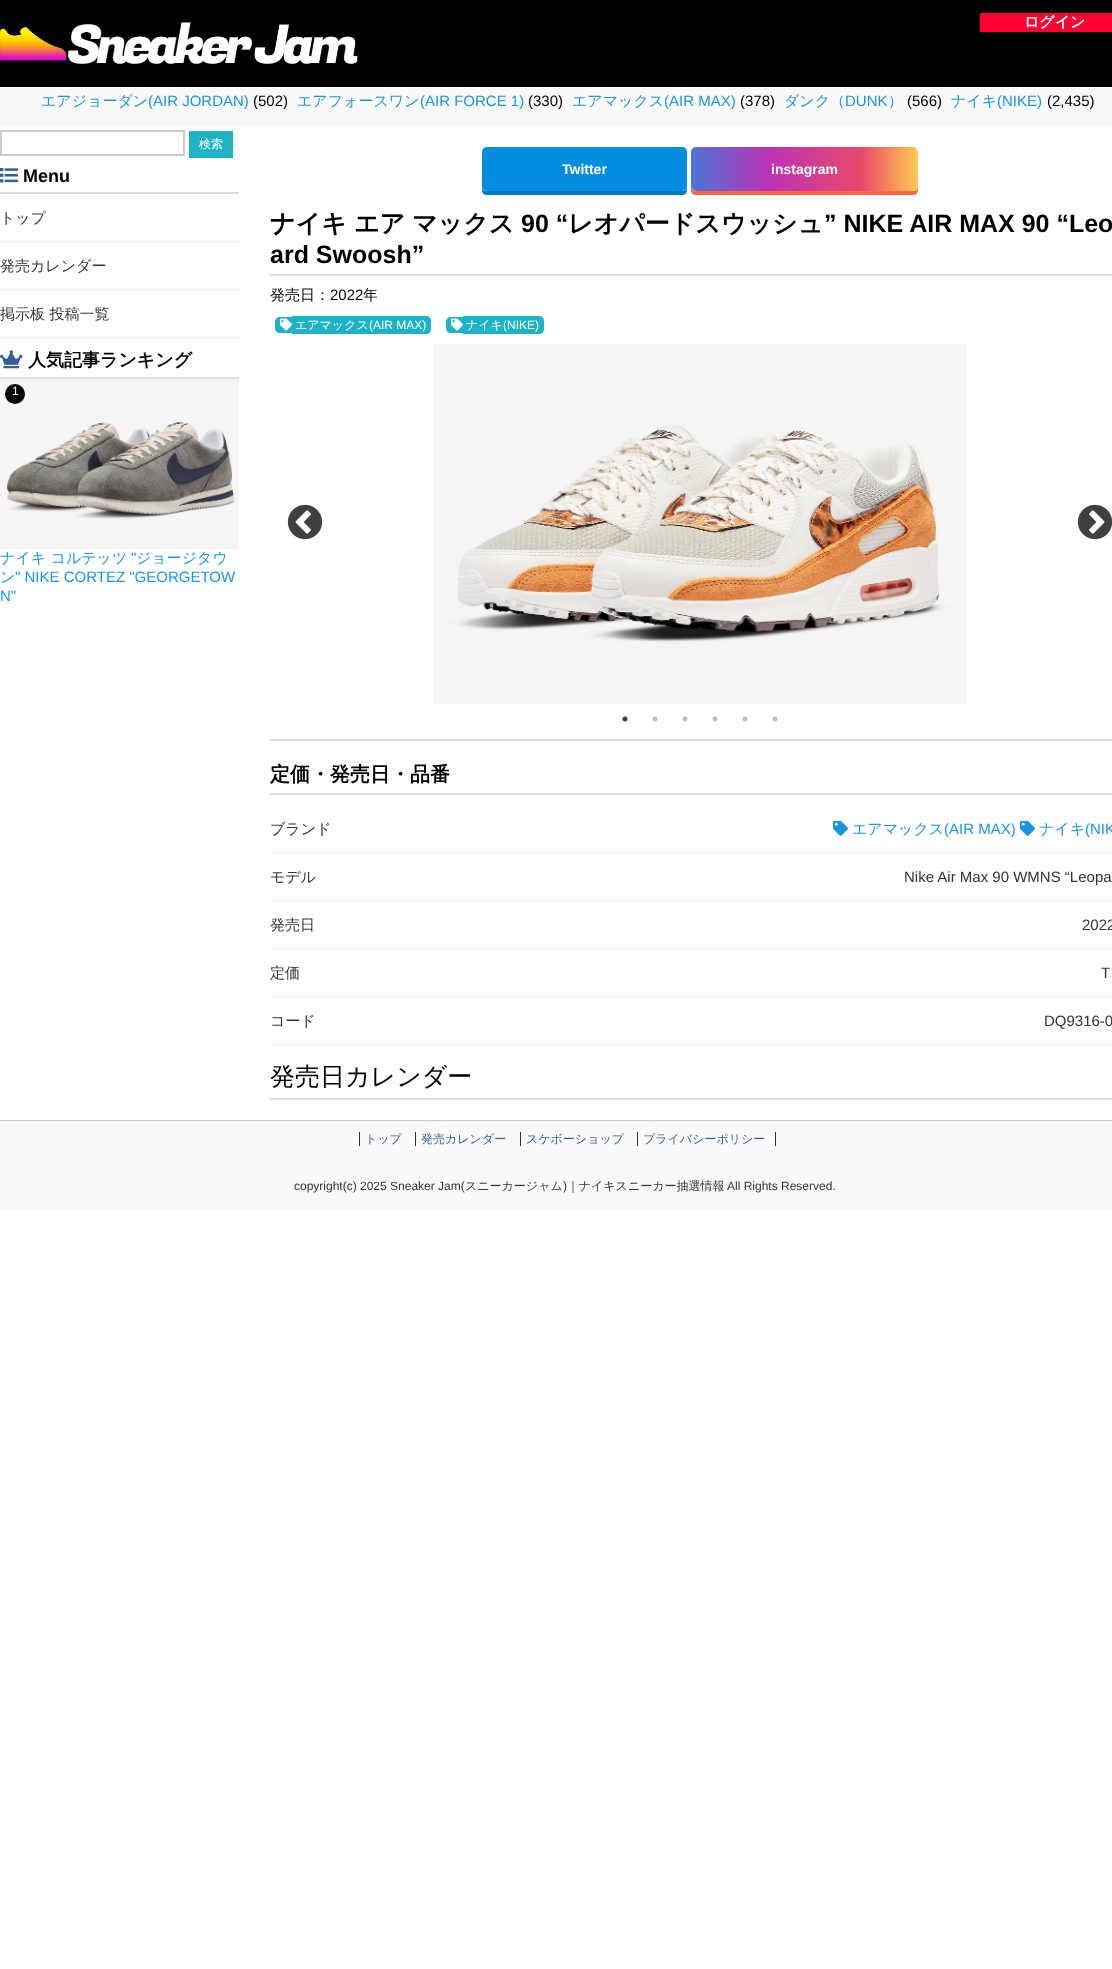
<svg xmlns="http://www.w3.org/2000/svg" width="1112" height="1969">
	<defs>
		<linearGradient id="g1" gradientUnits="userSpaceOnUse" x1="691" y1="169" x2="918" y2="169"><stop offset="0" stop-color="#4D73D6" /><stop offset="0.35" stop-color="#BE32B5" /><stop offset="0.75" stop-color="#E84969" /><stop offset="1" stop-color="#FFCB51" /></linearGradient>
	</defs>
	<rect width="100%" height="100%" fill="#FFFFFF" />
	<rect x="0" y="0" width="1112" height="87" fill="#000000" />
	<image x="0" y="22" width="358" height="42" href="assets/img1.png" />
	<rect x="980" y="13" width="132" height="19" fill="#FF0033" />
	<text x="1024" y="27" font-family="WenQuanYi Zen Hei" font-size="15" font-weight="700" fill="#FFFFFF">ログイン</text>
	<rect x="0" y="87" width="1112" height="40" fill="#F9F9F9" />
	<text x="41" y="106" font-family="WenQuanYi Zen Hei" font-size="15" font-weight="500" fill="#1B95E0">エアジョーダン</text>
	<text x="148" y="106" font-family="Liberation Sans" font-size="15" fill="#1B95E0">(AIR JORDAN)</text>
	<text x="253" y="106" font-family="Liberation Sans" font-size="15" fill="#000000">(502)</text>
	<text x="297" y="106" font-family="WenQuanYi Zen Hei" font-size="15" font-weight="500" fill="#1B95E0">エアフォースワン</text>
	<text x="420" y="106" font-family="Liberation Sans" font-size="15" fill="#1B95E0">(AIR FORCE 1)</text>
	<text x="528" y="106" font-family="Liberation Sans" font-size="15" fill="#000000">(330)</text>
	<text x="572" y="106" font-family="WenQuanYi Zen Hei" font-size="15" font-weight="500" fill="#1B95E0">エアマックス</text>
	<text x="664" y="106" font-family="Liberation Sans" font-size="15" fill="#1B95E0">(AIR MAX)</text>
	<text x="740" y="106" font-family="Liberation Sans" font-size="15" fill="#000000">(378)</text>
	<text x="784" y="106" font-family="WenQuanYi Zen Hei" font-size="15" font-weight="500" fill="#1B95E0">ダンク（</text>
	<text x="845" y="106" font-family="Liberation Sans" font-size="15" fill="#1B95E0">DUNK</text>
	<text x="888" y="106" font-family="WenQuanYi Zen Hei" font-size="15" font-weight="500" fill="#1B95E0">）</text>
	<text x="907" y="106" font-family="Liberation Sans" font-size="15" fill="#000000">(566)</text>
	<text x="951" y="106" font-family="WenQuanYi Zen Hei" font-size="15" font-weight="500" fill="#1B95E0">ナイキ</text>
	<text x="997" y="106" font-family="Liberation Sans" font-size="15" fill="#1B95E0">(NIKE)</text>
	<text x="1047" y="106" font-family="Liberation Sans" font-size="15" fill="#000000">(2,435)</text>
	<rect x="1" y="131" width="183" height="24" fill="none" stroke="#CCCCCC" stroke-width="2" />
	<rect x="189" y="131" width="44" height="27" fill="#1EB2C5" />
	<text x="199" y="148" font-family="WenQuanYi Zen Hei" font-size="12" font-weight="500" fill="#FFFFFF">検索</text>
	<rect x="0" y="192" width="239" height="2" fill="#DDDDDD" />
	<image x="0" y="167" width="18" height="16" href="assets/img2.png" />
	<text x="23" y="182" font-family="Liberation Sans" font-size="18" font-weight="700" fill="#000000">Menu</text>
	<path d="M0 241.5H239" fill="none" stroke="#DDDDDD" stroke-dasharray="1 1" />
	<text x="0" y="223" font-family="WenQuanYi Zen Hei" font-size="15" font-weight="500" fill="#333333">トップ</text>
	<path d="M0 289.5H239" fill="none" stroke="#DDDDDD" stroke-dasharray="1 1" />
	<text x="0" y="271" font-family="WenQuanYi Zen Hei" font-size="15" font-weight="500" fill="#333333">発売カレンダー</text>
	<path d="M0 337.5H239" fill="none" stroke="#DDDDDD" stroke-dasharray="1 1" />
	<text x="0" y="319" font-family="WenQuanYi Zen Hei" font-size="15" font-weight="500" fill="#333333">掲示板 投稿一覧</text>
	<rect x="0" y="377" width="239" height="2" fill="#DDDDDD" />
	<image x="0" y="350" width="23" height="19" href="assets/img3.png" />
	<text x="28" y="366" font-family="WenQuanYi Zen Hei" font-size="18" font-weight="700" fill="#000000">人気記事ランキング</text>
	<image x="0" y="379" width="239" height="170" href="assets/img4.png" />
	<circle cx="15" cy="394" r="10" fill="#000000" />
	<text x="12" y="395" font-family="Liberation Sans" font-size="12" fill="#FFFFFF">1</text>
	<text x="0" y="563" font-family="WenQuanYi Zen Hei" font-size="15" font-weight="500" fill="#1B95E0">ナイキ コルテッツ</text>
	<text x="131" y="563" font-family="Liberation Sans" font-size="15" fill="#1B95E0">"</text>
	<g font-family="WenQuanYi Zen Hei" font-size="15" font-weight="500" fill="#1B95E0">
		<text x="136" y="563">ジョージタウ</text>
		<text x="0" y="582">ン</text>
	</g>
	<g font-family="Liberation Sans" font-size="15" fill="#1B95E0">
		<text x="15" y="582">" NIKE CORTEZ "GEORGETOW</text>
		<text x="0" y="601">N"</text>
	</g>
	<path d="M482 186V190C482 193 484 195 487 195H682C685 195 687 193 687 190V186C687 189 685 191 682 191H487C484 191 482 189 482 186Z" fill="#0078BD" />
	<rect x="482" y="147" width="205" height="44" rx="5" fill="#008DDE" />
	<text x="562" y="174" font-family="Liberation Sans" font-size="14" font-weight="700" fill="#FFFFFF">Twitter</text>
	<path d="M691 186V190C691 193 693 195 696 195H913C916 195 918 193 918 190V186C918 189 916 191 913 191H696C693 191 691 189 691 186Z" fill="#FF6644" />
	<rect x="691" y="147" width="227" height="44" rx="5" fill="url(#g1)" />
	<text x="771" y="174" font-family="Liberation Sans" font-size="14" font-weight="700" fill="#FFFFFF">instagram</text>
	<rect x="270" y="274" width="842" height="2" fill="#DDDDDD" />
	<g font-family="WenQuanYi Zen Hei" font-size="25" font-weight="700" fill="#000000">
		<text x="270" y="232">ナイキ</text>
		<text x="354" y="232">エア</text>
		<text x="412" y="232">マックス</text>
	</g>
	<text x="521" y="232" font-family="Liberation Sans" font-size="25" font-weight="700" fill="#000000">90 “</text>
	<text x="568" y="232" font-family="WenQuanYi Zen Hei" font-size="25" font-weight="700" fill="#000000">レオパードスウッシュ</text>
	<g font-family="Liberation Sans" font-size="25" font-weight="700" fill="#000000">
		<text x="824" y="232">” NIKE AIR MAX 90 “Leo</text>
		<text x="270" y="263">ard Swoosh”</text>
	</g>
	<text x="270" y="300" font-family="WenQuanYi Zen Hei" font-size="15" font-weight="500" fill="#000000">発売日：</text>
	<text x="330" y="300" font-family="Liberation Sans" font-size="15" fill="#000000">2022</text>
	<text x="363" y="300" font-family="WenQuanYi Zen Hei" font-size="15" font-weight="500" fill="#000000">年</text>
	<path d="M280 317H292V333H280C277 333 275 331 275 328V322C275 319 277 317 280 317Z" fill="#1EB2C5" />
	<path d="M292 316H426C429 316 431 318 431 321V329C431 332 429 334 426 334H292Z" fill="#1EB2C5" />
	<image x="280" y="318" width="12" height="13" href="assets/img5.png" />
	<text x="295" y="329" font-family="WenQuanYi Zen Hei" font-size="12" font-weight="500" fill="#FFFFFF">エアマックス</text>
	<text x="369" y="329" font-family="Liberation Sans" font-size="12" fill="#FFFFFF">(AIR MAX)</text>
	<path d="M451 317H463V333H451C448 333 446 331 446 328V322C446 319 448 317 451 317Z" fill="#1EB2C5" />
	<path d="M463 316H539C542 316 544 318 544 321V329C544 332 542 334 539 334H463Z" fill="#1EB2C5" />
	<image x="451" y="318" width="12" height="13" href="assets/img5.png" />
	<text x="466" y="329" font-family="WenQuanYi Zen Hei" font-size="12" font-weight="500" fill="#FFFFFF">ナイキ</text>
	<text x="503" y="329" font-family="Liberation Sans" font-size="12" fill="#FFFFFF">(NIKE)</text>
	<image x="287" y="504" width="36" height="36" href="assets/img6.png" />
	<image x="434" y="344" width="532" height="360" href="assets/img7.png" />
	<image x="1077" y="504" width="35" height="36" href="assets/img8.png" />
	<image x="622" y="716" width="6" height="6" href="assets/img9.png" />
	<image x="652" y="716" width="6" height="6" href="assets/img10.png" />
	<image x="682" y="716" width="6" height="6" href="assets/img10.png" />
	<image x="712" y="716" width="6" height="6" href="assets/img10.png" />
	<image x="742" y="716" width="6" height="6" href="assets/img10.png" />
	<image x="772" y="716" width="6" height="6" href="assets/img10.png" />
	<rect x="270" y="739" width="842" height="2" fill="#DDDDDD" />
	<rect x="270" y="793" width="842" height="2" fill="#DDDDDD" />
	<text x="270" y="781" font-family="WenQuanYi Zen Hei" font-size="20" font-weight="700" fill="#000000">定価・発売日・品番</text>
	<path d="M270 852.5H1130" fill="none" stroke="#DDDDDD" stroke-dasharray="1 1" />
	<text x="270" y="834" font-family="WenQuanYi Zen Hei" font-size="15" font-weight="500" fill="#333333">ブランド</text>
	<image x="833" y="820" width="15" height="16" href="assets/img11.png" />
	<text x="852" y="834" font-family="WenQuanYi Zen Hei" font-size="15" font-weight="500" fill="#1B95E0">エアマックス</text>
	<text x="944" y="834" font-family="Liberation Sans" font-size="15" fill="#1B95E0">(AIR MAX)</text>
	<image x="1020" y="820" width="15" height="16" href="assets/img11.png" />
	<text x="1039" y="834" font-family="WenQuanYi Zen Hei" font-size="15" font-weight="500" fill="#1B95E0">ナイキ</text>
	<text x="1085" y="834" font-family="Liberation Sans" font-size="15" fill="#1B95E0">(NIK</text>
	<path d="M270 900.5H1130" fill="none" stroke="#DDDDDD" stroke-dasharray="1 1" />
	<text x="270" y="882" font-family="WenQuanYi Zen Hei" font-size="15" font-weight="500" fill="#333333">モデル</text>
	<text x="904" y="882" font-family="Liberation Sans" font-size="15" fill="#333333">Nike Air Max 90 WMNS “Leopa</text>
	<path d="M270 948.5H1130" fill="none" stroke="#DDDDDD" stroke-dasharray="1 1" />
	<text x="270" y="930" font-family="WenQuanYi Zen Hei" font-size="15" font-weight="500" fill="#333333">発売日</text>
	<text x="1082" y="930" font-family="Liberation Sans" font-size="15" fill="#333333">2022</text>
	<path d="M270 996.5H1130" fill="none" stroke="#DDDDDD" stroke-dasharray="1 1" />
	<text x="270" y="978" font-family="WenQuanYi Zen Hei" font-size="15" font-weight="500" fill="#333333">定価</text>
	<text x="1101" y="978" font-family="Liberation Sans" font-size="15" fill="#333333">T</text>
	<path d="M270 1044.5H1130" fill="none" stroke="#DDDDDD" stroke-dasharray="1 1" />
	<text x="270" y="1026" font-family="WenQuanYi Zen Hei" font-size="15" font-weight="500" fill="#333333">コード</text>
	<text x="1044" y="1026" font-family="Liberation Sans" font-size="15" fill="#333333">DQ9316-0</text>
	<rect x="270" y="1098" width="842" height="2" fill="#DDDDDD" />
	<text x="270" y="1085" font-family="WenQuanYi Zen Hei" font-size="25" font-weight="500" fill="#000000">発売日カレンダー</text>
	<rect x="0" y="1121" width="1112" height="89" fill="#F9F9F9" />
	<rect x="0" y="1120" width="1112" height="1" fill="#CCCCCC" />
	<text x="365" y="1143" font-family="WenQuanYi Zen Hei" font-size="12" font-weight="500" fill="#355F96">トップ</text>
	<rect x="359" y="1132" width="1" height="14" fill="#333333" />
	<text x="421" y="1143" font-family="WenQuanYi Zen Hei" font-size="12" font-weight="500" fill="#355F96">発売カレンダー</text>
	<rect x="415" y="1132" width="1" height="14" fill="#333333" />
	<text x="526" y="1143" font-family="WenQuanYi Zen Hei" font-size="12" font-weight="500" fill="#355F96">スケボーショップ</text>
	<rect x="520" y="1132" width="1" height="14" fill="#333333" />
	<text x="643" y="1143" font-family="WenQuanYi Zen Hei" font-size="12" font-weight="500" fill="#355F96">プライバシーポリシー</text>
	<rect x="637" y="1132" width="1" height="14" fill="#333333" />
	<rect x="775" y="1132" width="1" height="14" fill="#333333" />
	<text x="294" y="1190" font-family="Liberation Sans" font-size="12" fill="#333333">copyright(c) 2025 Sneaker Jam(</text>
	<text x="465" y="1190" font-family="WenQuanYi Zen Hei" font-size="12" font-weight="500" fill="#333333">スニーカージャム</text>
	<text x="563" y="1190" font-family="Liberation Sans" font-size="12" fill="#333333">)</text>
	<text x="567" y="1190" font-family="WenQuanYi Zen Hei" font-size="12" font-weight="500" fill="#333333">｜ナイキスニーカー抽選情報</text>
	<text x="727" y="1190" font-family="Liberation Sans" font-size="12" fill="#333333">All Rights Reserved.</text>
</svg>
